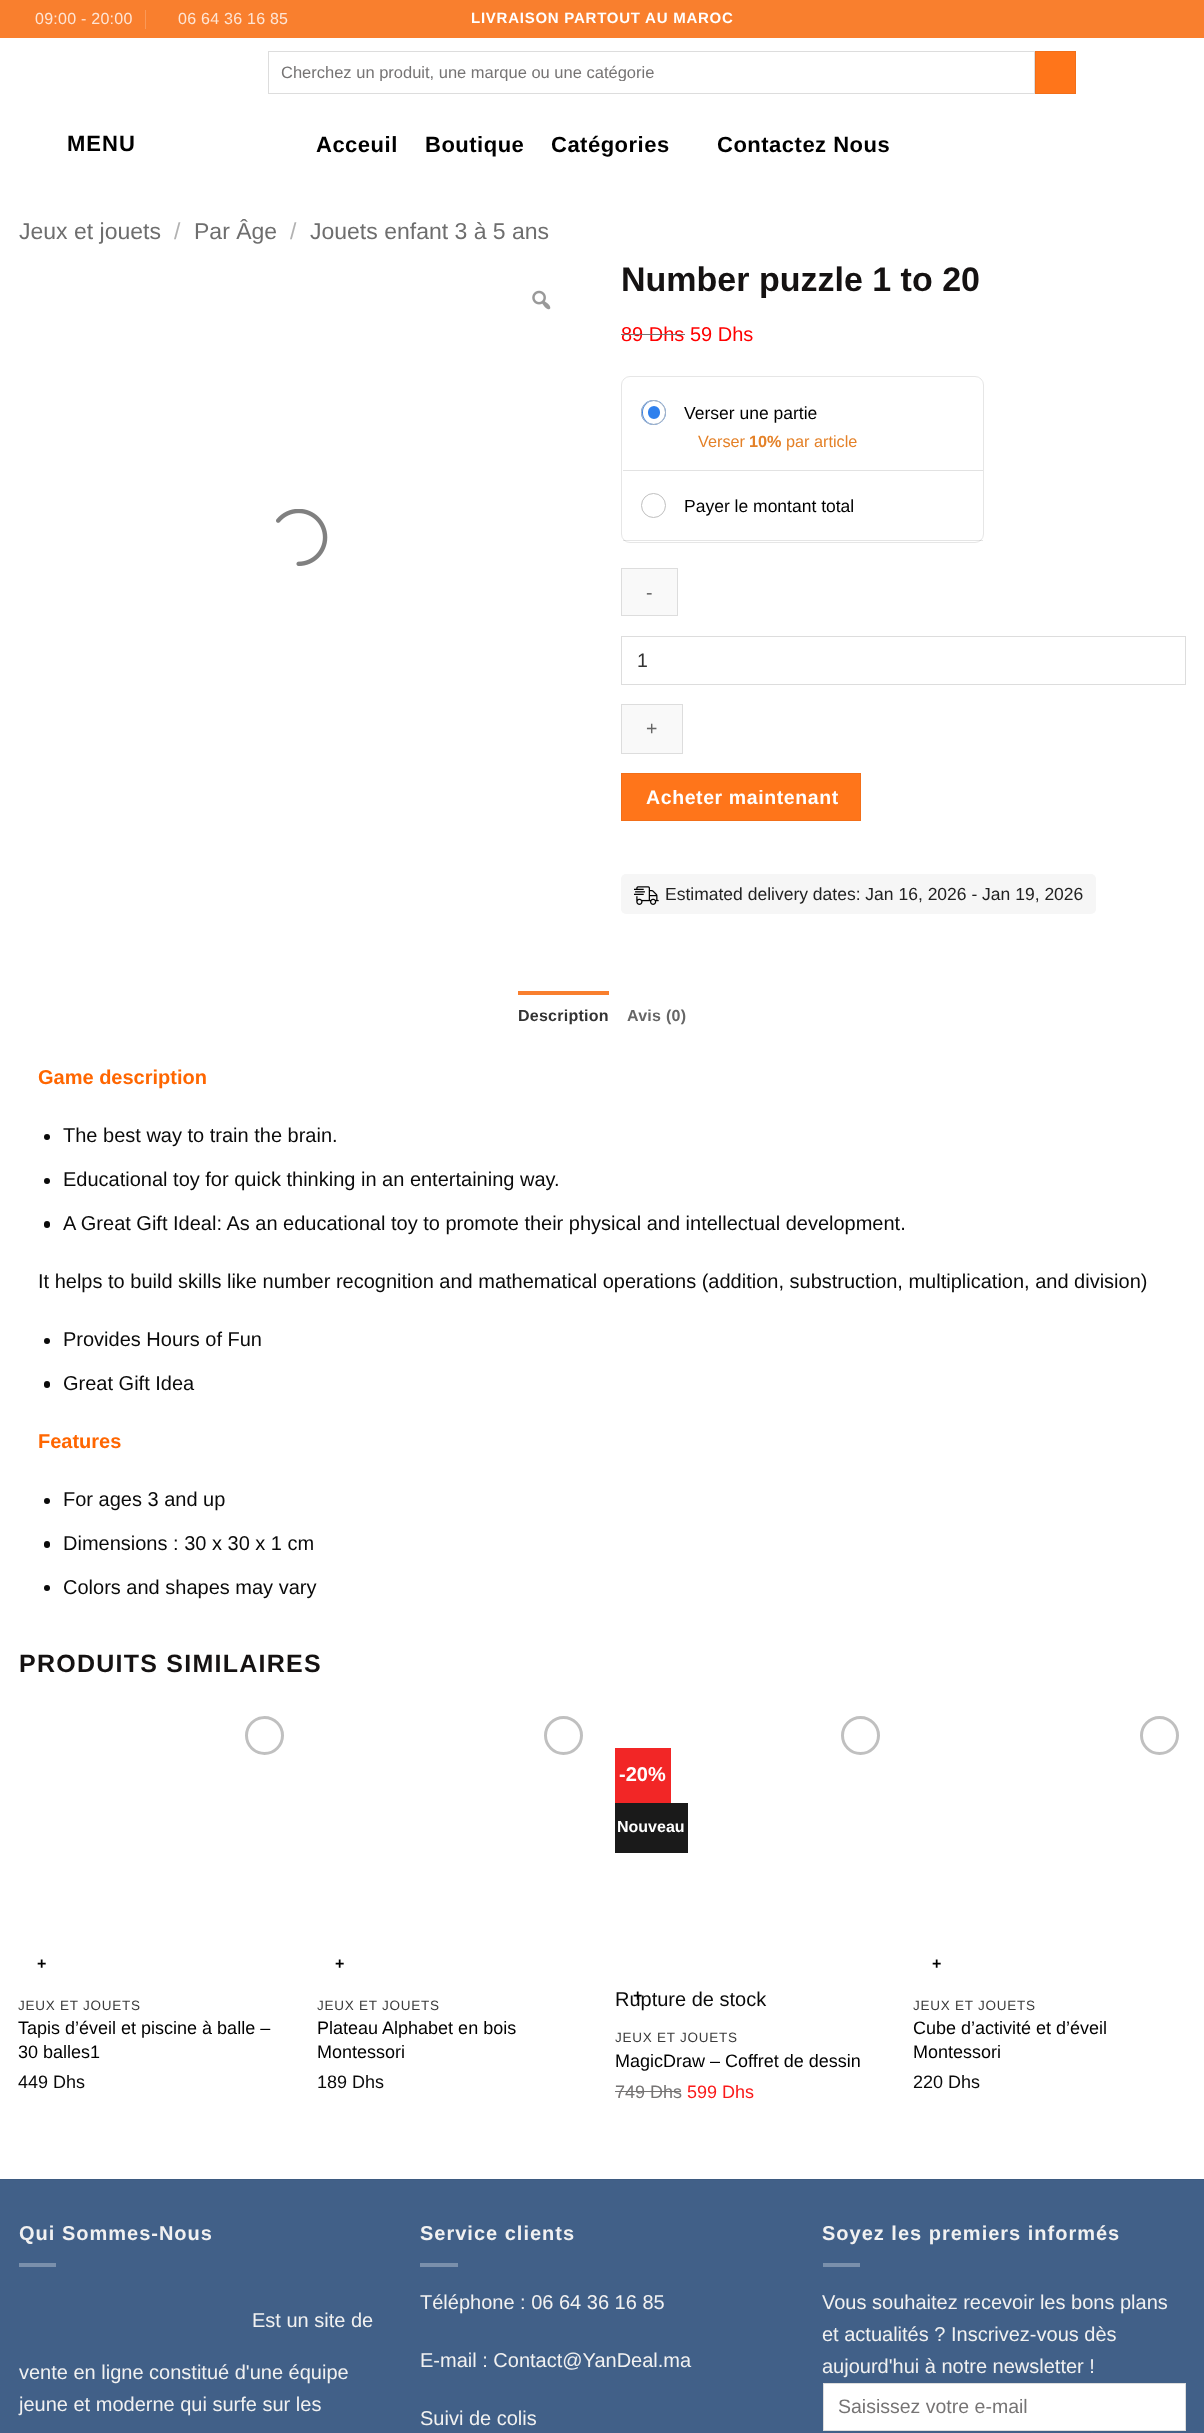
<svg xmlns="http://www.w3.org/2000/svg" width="1204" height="2433">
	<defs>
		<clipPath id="clip1"><rect x="281" y="63" width="735" height="18" /></clipPath>
	</defs>
	<rect width="100%" height="100%" fill="#FFFFFF" />
	<rect x="0" y="0" width="1204" height="38" fill="#F97F2E" />
	<text x="35" y="24" font-family="Liberation Sans" font-size="16" letter-spacing="0.25" fill="#FEE5D5">09:00 - 20:00</text>
	<rect x="145" y="10" width="1" height="19" fill="#FA9958" />
	<text x="178" y="24" font-family="Liberation Sans" font-size="16" letter-spacing="0.25" fill="#FEE5D5">06 64 36 16 85</text>
	<text x="471" y="23" font-family="Liberation Sans" font-size="15" font-weight="700" letter-spacing="0.75" fill="#FFFFFF">LIVRAISON PARTOUT AU MAROC</text>
	<rect x="268.5" y="51.5" width="766" height="42" fill="none" stroke="#DDDDDD" />
	<g clip-path="url(#clip1)">
		<text x="281" y="78" font-family="Liberation Sans" font-size="16.5" fill="#767474">Cherchez un produit, une marque ou une catégorie</text>
	</g>
	<rect x="1035.5" y="51.5" width="40" height="42" fill="#FF751A" stroke="#F26F19" />
	<text x="67" y="151" font-family="Liberation Sans" font-size="22" font-weight="700" letter-spacing="1" fill="#000000">MENU</text>
	<g font-family="Liberation Sans" font-size="22" font-weight="700" letter-spacing="0.5" fill="#000000">
		<text x="316" y="152">Acceuil</text>
		<text x="425" y="152">Boutique</text>
		<text x="551" y="152">Catégories</text>
		<text x="717" y="152">Contactez Nous</text>
	</g>
	<text x="19" y="239" font-family="Liberation Sans" font-size="23" fill="#6E6E6E">Jeux et jouets</text>
	<text x="174" y="239" font-family="Liberation Sans" font-size="23" fill="#B2B2B2">/</text>
	<text x="194" y="239" font-family="Liberation Sans" font-size="23" fill="#6E6E6E">Par Âge</text>
	<text x="290" y="239" font-family="Liberation Sans" font-size="23" fill="#B2B2B2">/</text>
	<text x="310" y="239" font-family="Liberation Sans" font-size="23" fill="#6E6E6E">Jouets enfant 3 à 5 ans</text>
	<image x="532" y="290" width="19" height="20" href="assets/img1.png" />
	<image x="276" y="509" width="52" height="57" href="assets/img2.png" />
	<text x="621" y="291" font-family="Liberation Sans" font-size="34" font-weight="700" fill="#151212">Number puzzle 1 to 20</text>
	<text x="621" y="341" font-family="Liberation Sans" font-size="20" fill="#FF0000">89 Dhs 59 Dhs</text>
	<rect x="621" y="334" width="64" height="1" fill="#767474" />
	<rect x="621.5" y="376.5" width="362" height="166" rx="8.5" fill="none" stroke="#E6E6E6" />
	<rect x="623" y="470" width="360" height="1" fill="#E2E2E2" />
	<circle cx="653.5" cy="412.5" r="12.5" fill="#2F80ED" />
	<rect x="645.5" y="403.5" width="17" height="18" rx="8.5" fill="none" stroke="#FFFFFF" stroke-width="5" />
	<circle cx="653.5" cy="412.5" r="12" fill="none" stroke="#BFBFBF" />
	<text x="684" y="419" font-family="Liberation Sans" font-size="17.5" fill="#000000">Verser une partie</text>
	<text x="698" y="447" font-family="Liberation Sans" font-size="16.25" fill="#E48128">Verser</text>
	<text x="749" y="447" font-family="Liberation Sans" font-size="16.25" font-weight="700" fill="#E48128">10%</text>
	<text x="786" y="447" font-family="Liberation Sans" font-size="16.25" fill="#E48128">par article</text>
	<rect x="623" y="540" width="360" height="1" fill="#000000" fill-opacity="0.1" />
	<circle cx="653.5" cy="505.5" r="12" fill="none" stroke="#BFBFBF" />
	<text x="684" y="512" font-family="Liberation Sans" font-size="17.5" fill="#000000">Payer le montant total</text>
	<rect x="621.5" y="568.5" width="56" height="47" fill="#F9F9F9" stroke="#DDDDDD" />
	<text x="646" y="599" font-family="Liberation Sans" font-size="19.5" letter-spacing="0.6" fill="#666666">-</text>
	<rect x="621.5" y="636.5" width="564" height="48" fill="none" stroke="#DDDDDD" />
	<text x="637" y="667" font-family="Liberation Sans" font-size="19.5" fill="#333333">1</text>
	<rect x="621.5" y="704.5" width="61" height="49" fill="#F9F9F9" stroke="#DDDDDD" />
	<text x="646" y="735" font-family="Liberation Sans" font-size="19.5" letter-spacing="0.6" fill="#666666">+</text>
	<rect x="621.5" y="773.5" width="239" height="47" fill="#FF751A" stroke="#F26F19" />
	<text x="646" y="804" font-family="Liberation Sans" font-size="19.5" font-weight="700" letter-spacing="0.6" fill="#FFFFFF">Acheter maintenant</text>
	<rect x="621" y="874" width="475" height="40" rx="5" fill="#F6F6F6" />
	<image x="634" y="886" width="25" height="19" href="assets/img3.png" />
	<text x="665" y="900" font-family="Liberation Sans" font-size="17.5" fill="#222222">Estimated delivery dates: Jan 16, 2026 - Jan 19, 2026</text>
	<rect x="518" y="991" width="91" height="4" fill="#F97F2E" />
	<text x="518" y="1021" font-family="Liberation Sans" font-size="16" font-weight="700" letter-spacing="0.25" fill="#333333">Description</text>
	<text x="627" y="1021" font-family="Liberation Sans" font-size="16" font-weight="700" letter-spacing="0.25" fill="#666666">Avis (0)</text>
	<text x="38" y="1084" font-family="Liberation Sans" font-size="20" font-weight="700" fill="#FF6600">Game description</text>
	<circle cx="47" cy="1137" r="3" fill="#0A0A0A" />
	<text x="63" y="1142" font-family="Liberation Sans" font-size="20" fill="#0A0A0A">The best way to train the brain.</text>
	<circle cx="47" cy="1181" r="3" fill="#0A0A0A" />
	<text x="63" y="1186" font-family="Liberation Sans" font-size="20" fill="#0A0A0A">Educational toy for quick thinking in an entertaining way.</text>
	<rect x="44" y="1221" width="6" height="7" rx="3" fill="#0A0A0A" />
	<g font-family="Liberation Sans" font-size="20" fill="#0A0A0A">
		<text x="63" y="1230">A Great Gift Ideal: As an educational toy to promote their physical and intellectual development.</text>
		<text x="38" y="1288">It helps to build skills like number recognition and mathematical operations (addition, substruction, multiplication, and division)</text>
	</g>
	<circle cx="47" cy="1341" r="3" fill="#0A0A0A" />
	<text x="63" y="1346" font-family="Liberation Sans" font-size="20" fill="#0A0A0A">Provides Hours of Fun</text>
	<rect x="44" y="1381" width="6" height="7" rx="3" fill="#0A0A0A" />
	<text x="63" y="1390" font-family="Liberation Sans" font-size="20" fill="#0A0A0A">Great Gift Idea</text>
	<text x="38" y="1448" font-family="Liberation Sans" font-size="20" font-weight="700" fill="#FF6600">Features</text>
	<circle cx="47" cy="1501" r="3" fill="#0A0A0A" />
	<text x="63" y="1506" font-family="Liberation Sans" font-size="20" fill="#0A0A0A">For ages 3 and up</text>
	<rect x="44" y="1541" width="6" height="7" rx="3" fill="#0A0A0A" />
	<text x="63" y="1550" font-family="Liberation Sans" font-size="20" fill="#0A0A0A">Dimensions : 30 x 30 x 1 cm</text>
	<circle cx="47" cy="1588" r="3" fill="#0A0A0A" />
	<text x="63" y="1594" font-family="Liberation Sans" font-size="20" fill="#0A0A0A">Colors and shapes may vary</text>
	<text x="19" y="1672" font-family="Liberation Sans" font-size="25" font-weight="700" letter-spacing="1.25" fill="#151212">PRODUITS SIMILAIRES</text>
	<circle cx="264.5" cy="1735.5" r="18" fill="none" stroke="#C0C0C0" stroke-width="3" />
	<text x="37" y="1969" font-family="Liberation Sans" font-size="16" font-weight="700" fill="#000000">+</text>
	<text x="18" y="2010" font-family="Liberation Sans" font-size="13.5" letter-spacing="0.75" fill="#3B3B3B">JEUX ET JOUETS</text>
	<g font-family="Liberation Sans" font-size="18" fill="#000000">
		<text x="18" y="2034">Tapis d’éveil et piscine à balle –</text>
		<text x="18" y="2058">30 balles1</text>
	</g>
	<text x="18" y="2088" font-family="Liberation Sans" font-size="18" fill="#0A0A0A">449 Dhs</text>
	<circle cx="563.5" cy="1735.5" r="18" fill="none" stroke="#C0C0C0" stroke-width="3" />
	<text x="335" y="1969" font-family="Liberation Sans" font-size="16" font-weight="700" fill="#000000">+</text>
	<text x="317" y="2010" font-family="Liberation Sans" font-size="13.5" letter-spacing="0.75" fill="#3B3B3B">JEUX ET JOUETS</text>
	<g font-family="Liberation Sans" font-size="18" fill="#000000">
		<text x="317" y="2034">Plateau Alphabet en bois</text>
		<text x="317" y="2058">Montessori</text>
	</g>
	<text x="317" y="2088" font-family="Liberation Sans" font-size="18" fill="#0A0A0A">189 Dhs</text>
	<rect x="615" y="1748" width="56" height="55" fill="#F22626" />
	<text x="619" y="1781" font-family="Liberation Sans" font-size="20" font-weight="700" fill="#FFFFFF">-20%</text>
	<rect x="615" y="1803" width="73" height="50" fill="#1A1A1A" />
	<text x="617" y="1832" font-family="Liberation Sans" font-size="16" font-weight="700" fill="#FFFFFF">Nouveau</text>
	<circle cx="860.5" cy="1735.5" r="18" fill="none" stroke="#C0C0C0" stroke-width="3" />
	<text x="615" y="2006" font-family="Liberation Sans" font-size="20" fill="#0A0A0A">Rupture de stock</text>
	<text x="633" y="2001" font-family="Liberation Sans" font-size="16" font-weight="700" fill="#000000">+</text>
	<text x="615" y="2042" font-family="Liberation Sans" font-size="13.5" letter-spacing="0.75" fill="#3B3B3B">JEUX ET JOUETS</text>
	<text x="615" y="2067" font-family="Liberation Sans" font-size="18" fill="#000000">MagicDraw – Coffret de dessin</text>
	<text x="615" y="2098" font-family="Liberation Sans" font-size="18" fill="#767474">749 Dhs</text>
	<rect x="615" y="2091" width="66" height="1" fill="#767474" />
	<text x="687" y="2098" font-family="Liberation Sans" font-size="18" fill="#FA1919">599 Dhs</text>
	<circle cx="1159.5" cy="1735.5" r="18" fill="none" stroke="#C0C0C0" stroke-width="3" />
	<text x="932" y="1969" font-family="Liberation Sans" font-size="16" font-weight="700" fill="#000000">+</text>
	<text x="913" y="2010" font-family="Liberation Sans" font-size="13.5" letter-spacing="0.75" fill="#3B3B3B">JEUX ET JOUETS</text>
	<g font-family="Liberation Sans" font-size="18" fill="#000000">
		<text x="913" y="2034">Cube d’activité et d’éveil</text>
		<text x="913" y="2058">Montessori</text>
	</g>
	<text x="913" y="2088" font-family="Liberation Sans" font-size="18" fill="#0A0A0A">220 Dhs</text>
	<rect x="0" y="2180" width="1204" height="253" fill="#416088" />
	<rect x="0" y="2179" width="1204" height="1" fill="#3E5B81" />
	<text x="19" y="2240" font-family="Liberation Sans" font-size="20" font-weight="700" letter-spacing="1" fill="#F1F1F1">Qui Sommes-Nous</text>
	<rect x="19" y="2263" width="37" height="4" fill="#7A90AC" />
	<g font-family="Liberation Sans" font-size="20" fill="#F1F1F1">
		<text x="252" y="2327">Est un site de</text>
		<text x="19" y="2379">vente en ligne constitué d'une équipe</text>
		<text x="19" y="2411">jeune et moderne qui surfe sur les</text>
	</g>
	<text x="420" y="2240" font-family="Liberation Sans" font-size="20" font-weight="700" letter-spacing="1" fill="#F1F1F1">Service clients</text>
	<rect x="420" y="2263" width="38" height="4" fill="#7A90AC" />
	<g font-family="Liberation Sans" font-size="20" fill="#F1F1F1">
		<text x="420" y="2309">Téléphone : 06 64 36 16 85</text>
		<text x="420" y="2367">E-mail : Contact@YanDeal.ma</text>
		<text x="420" y="2425">Suivi de colis</text>
	</g>
	<text x="822" y="2240" font-family="Liberation Sans" font-size="20" font-weight="700" letter-spacing="1" fill="#F1F1F1">Soyez les premiers informés</text>
	<rect x="823" y="2263" width="37" height="4" fill="#7A90AC" />
	<g font-family="Liberation Sans" font-size="20" fill="#F1F1F1">
		<text x="822" y="2309">Vous souhaitez recevoir les bons plans</text>
		<text x="822" y="2341">et actualités ? Inscrivez-vous dès</text>
		<text x="822" y="2373">aujourd'hui à notre newsletter !</text>
	</g>
	<rect x="823.5" y="2383.5" width="362" height="47" fill="#FFFFFF" stroke="#DDDDDD" />
	<text x="838" y="2413" font-family="Liberation Sans" font-size="19.5" fill="#767474">Saisissez votre e-mail</text>
</svg>
